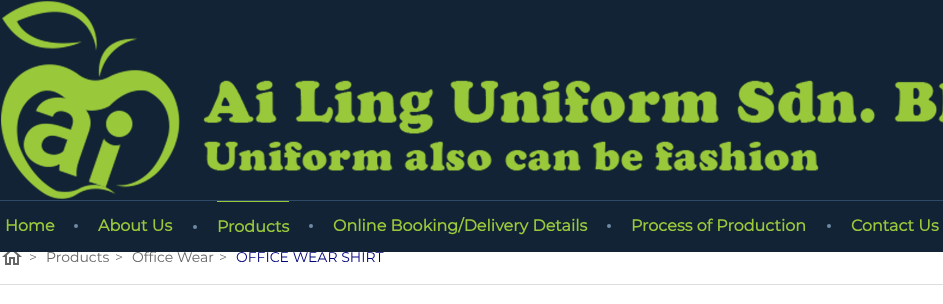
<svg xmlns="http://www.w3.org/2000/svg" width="943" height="304">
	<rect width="100%" height="100%" fill="#FFFFFF" />
	<rect x="0" y="0" width="943" height="200" fill="#122335" />
	<rect x="0" y="200" width="943" height="1" fill="#2F4A64" />
	<image x="1" y="1" width="942" height="198" href="assets/img1.png" />
	<g font-family="Montserrat" font-size="14" font-weight="100" fill="#666666">
		<text x="46" y="262">Products</text>
		<text x="132" y="262">Office Wear</text>
	</g>
	<rect x="0" y="201" width="943" height="51" fill="#122335" />
	<text x="5" y="231" font-family="Montserrat" font-size="16" font-weight="700" fill="#99C93B">Home</text>
	<circle cx="76" cy="226" r="2" fill="#6E8BA5" />
	<text x="98" y="231" font-family="Montserrat" font-size="16" font-weight="700" fill="#99C93B">About Us</text>
	<circle cx="195" cy="227" r="2" fill="#6E8BA5" />
	<rect x="217" y="201" width="72" height="1" fill="#99C93B" />
	<text x="217" y="232" font-family="Montserrat" font-size="16" font-weight="700" fill="#99C93B">Products</text>
	<circle cx="311" cy="226" r="2" fill="#6E8BA5" />
	<text x="333" y="231" font-family="Montserrat" font-size="16" font-weight="700" fill="#99C93B">Online Booking/Delivery Details</text>
	<circle cx="609" cy="226" r="2" fill="#6E8BA5" />
	<text x="631" y="231" font-family="Montserrat" font-size="16" font-weight="700" fill="#99C93B">Process of Production</text>
	<circle cx="829" cy="226" r="2" fill="#6E8BA5" />
	<text x="851" y="231" font-family="Montserrat" font-size="16" font-weight="700" fill="#99C93B">Contact Us</text>
	<rect x="0" y="284" width="943" height="1" fill="#DDDDDD" />
	<image x="2" y="252" width="20" height="13" href="assets/img2.png" />
	<g font-family="Montserrat" font-size="14" font-weight="100" fill="#666666">
		<text x="29" y="262">&gt;</text>
		<text x="115" y="262">&gt;</text>
		<text x="219" y="262">&gt;</text>
	</g>
	<text x="236" y="262" font-family="Montserrat" font-size="14" font-weight="100" fill="#000378">OFFICE WEAR SHIRT</text>
</svg>
